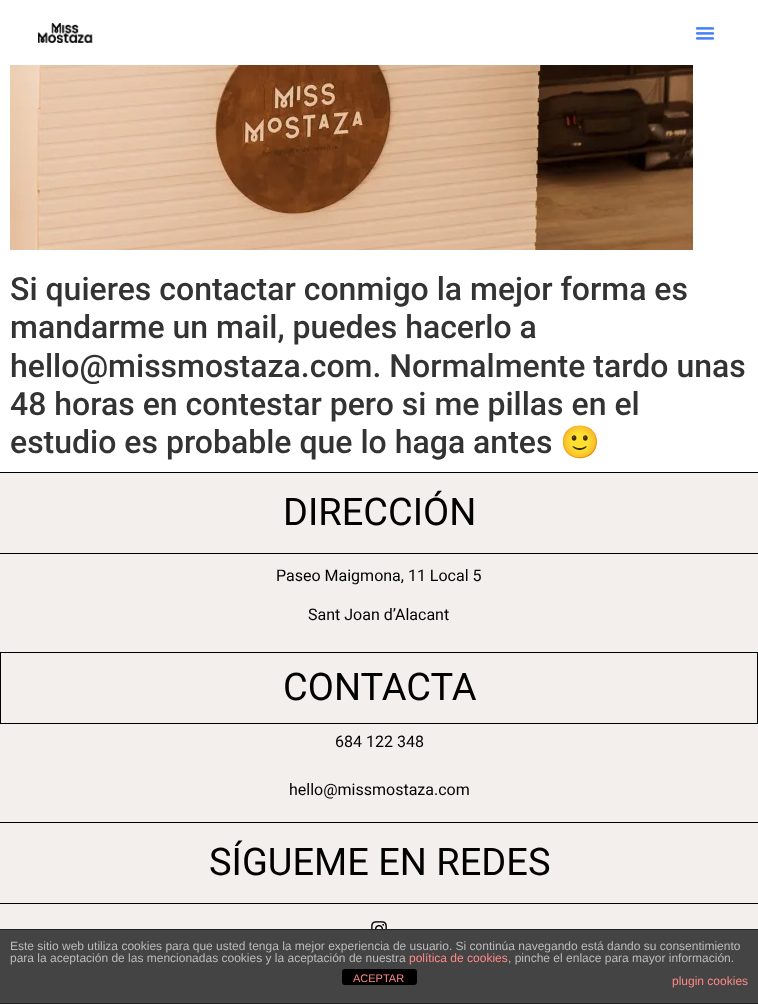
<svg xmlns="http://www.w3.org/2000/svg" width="758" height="1004">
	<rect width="100%" height="100%" fill="#FFFFFF" />
	<image x="38" y="23" width="55" height="20" href="assets/img1.png" />
	<image x="695" y="27" width="20" height="13" href="assets/img2.png" />
	<image x="10" y="65" width="683" height="185" href="assets/img3.png" />
	<g font-family="Roboto" font-size="32" font-weight="500" fill="#333333">
		<text x="10" y="300">Si quieres contactar conmigo la mejor forma es</text>
		<text x="10" y="338">mandarme un mail, puedes hacerlo a</text>
		<text x="10" y="377">hello@missmostaza.com. Normalmente tardo unas</text>
		<text x="10" y="415">48 horas en contestar pero si me pillas en el</text>
		<text x="10" y="453">estudio es probable que lo haga antes</text>
	</g>
	<text x="560" y="453" font-family="Noto Color Emoji" font-size="32" fill="#333333">🙂</text>
	<rect x="0" y="473" width="758" height="456" fill="#F2EFEC" />
	<rect x="0" y="472" width="758" height="1" fill="#000000" />
	<text x="283" y="525" font-family="Roboto" font-size="38" fill="#000000">DIRECCIÓN</text>
	<rect x="0" y="553" width="758" height="1" fill="#000000" />
	<rect x="0" y="652" width="758" height="1" fill="#000000" />
	<g font-family="Roboto" font-size="16" fill="#000000">
		<text x="276" y="581">Paseo Maigmona, 11 Local 5</text>
		<text x="308" y="620">Sant Joan d’Alacant</text>
	</g>
	<rect x="757" y="653" width="1" height="70" fill="#000000" />
	<rect x="0" y="653" width="1" height="70" fill="#000000" />
	<text x="283" y="700" font-family="Roboto" font-size="38" fill="#000000">CONTACTA</text>
	<rect x="0" y="723" width="758" height="1" fill="#000000" />
	<rect x="0" y="822" width="758" height="1" fill="#000000" />
	<g font-family="Roboto" font-size="16" fill="#000000">
		<text x="335" y="747">684 122 348</text>
		<text x="289" y="795">hello@missmostaza.com</text>
	</g>
	<text x="209" y="875" font-family="Roboto" font-size="38" fill="#000000">SÍGUEME EN REDES</text>
	<rect x="0" y="903" width="758" height="1" fill="#000000" />
	<image x="371" y="921" width="16" height="8" href="assets/img4.png" />
	<rect x="0" y="930" width="758" height="73" fill="#444444" />
	<rect x="0" y="929" width="758" height="1" fill="#222222" />
	<rect x="0" y="1003" width="758" height="1" fill="#222222" />
	<g font-family="Liberation Sans" font-size="12" fill="#BBBBBB">
		<text x="10" y="950">Este sitio web utiliza cookies para que usted tenga la mejor experiencia de usuario. Si continúa navegando está dando su consentimiento</text>
		<text x="10" y="962">para la aceptación de las mencionadas cookies y la aceptación de nuestra</text>
	</g>
	<text x="409" y="962" font-family="Liberation Sans" font-size="12" fill="#FF8888">política de cookies</text>
	<text x="508" y="962" font-family="Liberation Sans" font-size="12" fill="#BBBBBB">, pinche el enlace para mayor información.</text>
	<text x="672" y="985" font-family="Liberation Sans" font-size="12" fill="#FF8888">plugin cookies</text>
	<rect x="342" y="969" width="75" height="16" rx="3" fill="#000000" />
	<text x="353" y="982" font-family="Liberation Sans" font-size="11" fill="#FF8888">ACEPTAR</text>
</svg>
